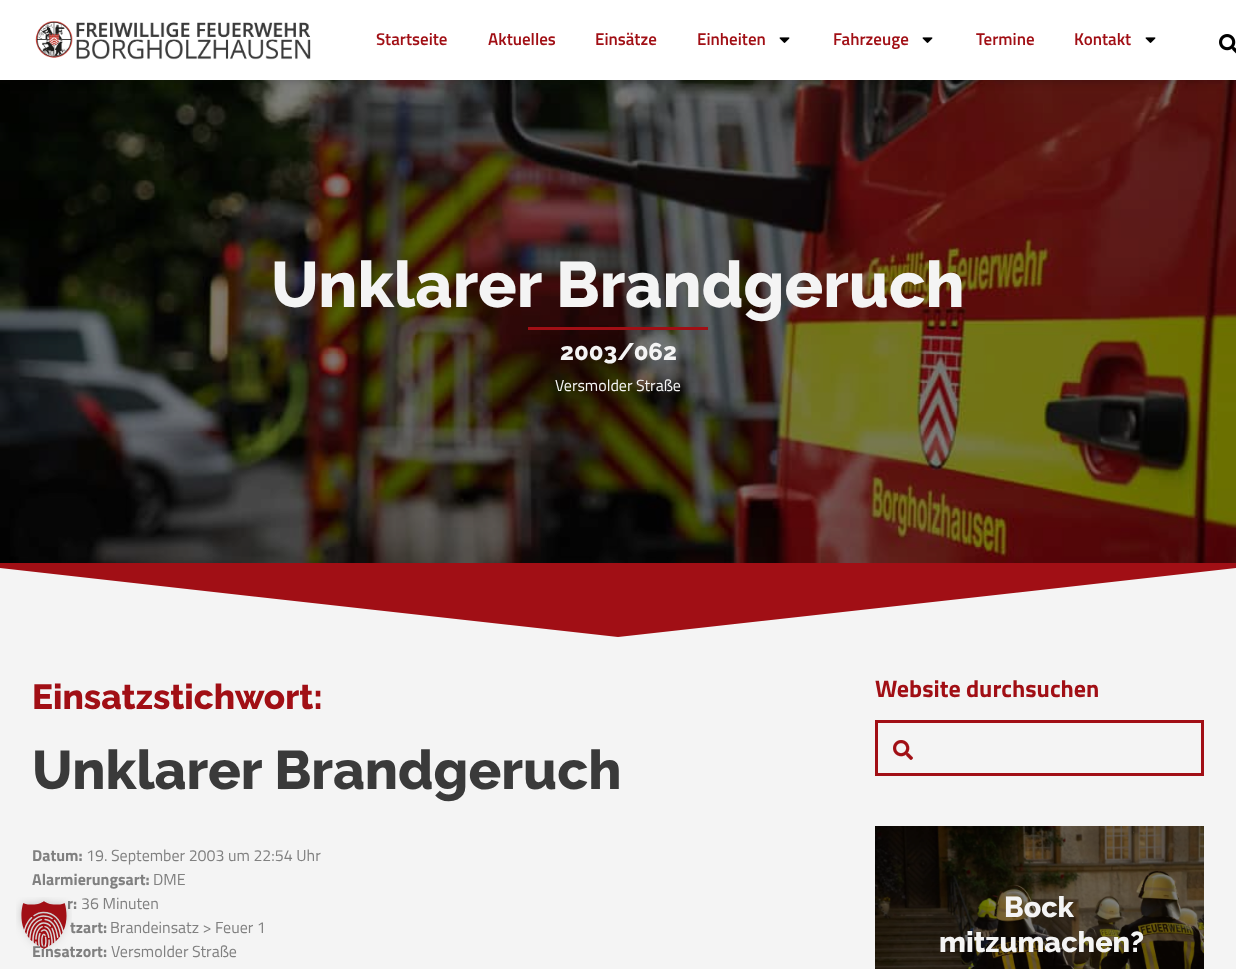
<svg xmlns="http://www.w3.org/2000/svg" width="1236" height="969">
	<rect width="100%" height="100%" fill="#F4F4F4" />
	<image x="0" y="80" width="1236" height="483" href="assets/img4.png" />
	<rect x="4" y="4" width="1228" height="72" fill="#000000" fill-opacity="0.5" filter="blur(6.5px)" />
	<rect x="0" y="0" width="1236" height="80" fill="#FFFFFF" />
	<image x="35" y="21" width="276" height="39" href="assets/img1.png" />
	<g font-family="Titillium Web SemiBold" font-size="17" font-weight="600" fill="#A10F15">
		<text x="376" y="45">Startseite</text>
		<text x="488" y="45">Aktuelles</text>
		<text x="595" y="45">Einsätze</text>
		<text x="697" y="45">Einheiten</text>
	</g>
	<image x="779" y="37" width="11" height="6" href="assets/img2.png" />
	<text x="833" y="45" font-family="Titillium Web SemiBold" font-size="17" font-weight="600" fill="#A10F15">Fahrzeuge</text>
	<image x="922" y="37" width="11" height="6" href="assets/img2.png" />
	<g font-family="Titillium Web SemiBold" font-size="17" font-weight="600" fill="#A10F15">
		<text x="976" y="45">Termine</text>
		<text x="1074" y="45">Kontakt</text>
	</g>
	<image x="1145" y="37" width="11" height="6" href="assets/img2.png" />
	<image x="1219" y="34" width="17" height="20" href="assets/img3.png" />
	<text x="271" y="307" font-family="Raleway" font-size="64" font-weight="100" fill="#F4F4F4">Unklarer Brandgeruch</text>
	<rect x="528" y="327" width="180" height="3" fill="#A10F15" />
	<text x="560" y="360" font-family="Raleway" font-size="24" font-weight="100" fill="#F4F4F4">2003/062</text>
	<text x="555" y="391" font-family="Titillium Web" font-size="16" fill="#F4F4F4">Versmolder Straße</text>
	<path d="M618 637L-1 568V563H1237V568Z" fill="#A10F15" />
	<text x="32" y="709" font-family="Raleway" font-size="35" font-weight="100" fill="#A10F15">Einsatzstichwort:</text>
	<text x="32" y="789" font-family="Raleway" font-size="54.4" font-weight="100" fill="#3A3A3A">Unklarer Brandgeruch</text>
	<text x="32" y="861" font-family="Titillium Web" font-size="16" font-weight="700" fill="#808080">Datum:</text>
	<text x="86" y="861" font-family="Titillium Web" font-size="16" fill="#808080">19. September 2003 um 22:54 Uhr</text>
	<text x="32" y="885" font-family="Titillium Web" font-size="16" font-weight="700" fill="#808080">Alarmierungsart:</text>
	<text x="153" y="885" font-family="Titillium Web" font-size="16" fill="#808080">DME</text>
	<text x="67" y="909" font-family="Titillium Web" font-size="16" font-weight="700" fill="#808080">r:</text>
	<text x="81" y="909" font-family="Titillium Web" font-size="16" fill="#808080">36 Minuten</text>
	<text x="70" y="933" font-family="Titillium Web" font-size="16" font-weight="700" fill="#808080">tzart:</text>
	<text x="110" y="933" font-family="Titillium Web" font-size="16" fill="#808080">Brandeinsatz &gt; Feuer 1</text>
	<text x="32" y="957" font-family="Titillium Web" font-size="16" font-weight="700" fill="#808080">Einsatzort:</text>
	<text x="111" y="957" font-family="Titillium Web" font-size="16" fill="#808080">Versmolder Straße</text>
	<text x="875" y="697" font-family="Titillium Web" font-size="24" font-weight="700" fill="#A10F15">Website durchsuchen</text>
	<rect x="876.5" y="721.5" width="326" height="53" fill="none" stroke="#A10F15" stroke-width="3" />
	<image x="893" y="740" width="20" height="20" href="assets/img5.png" />
	<image x="875" y="826" width="329" height="143" href="assets/img6.png" />
	<g font-family="Raleway" font-size="28.75" font-weight="100" fill="#F4F4F4">
		<text x="1004" y="917">Bock</text>
		<text x="939" y="952">mitzumachen?</text>
	</g>
	<image x="16" y="897" width="56" height="54" href="assets/img7.png" />
</svg>
